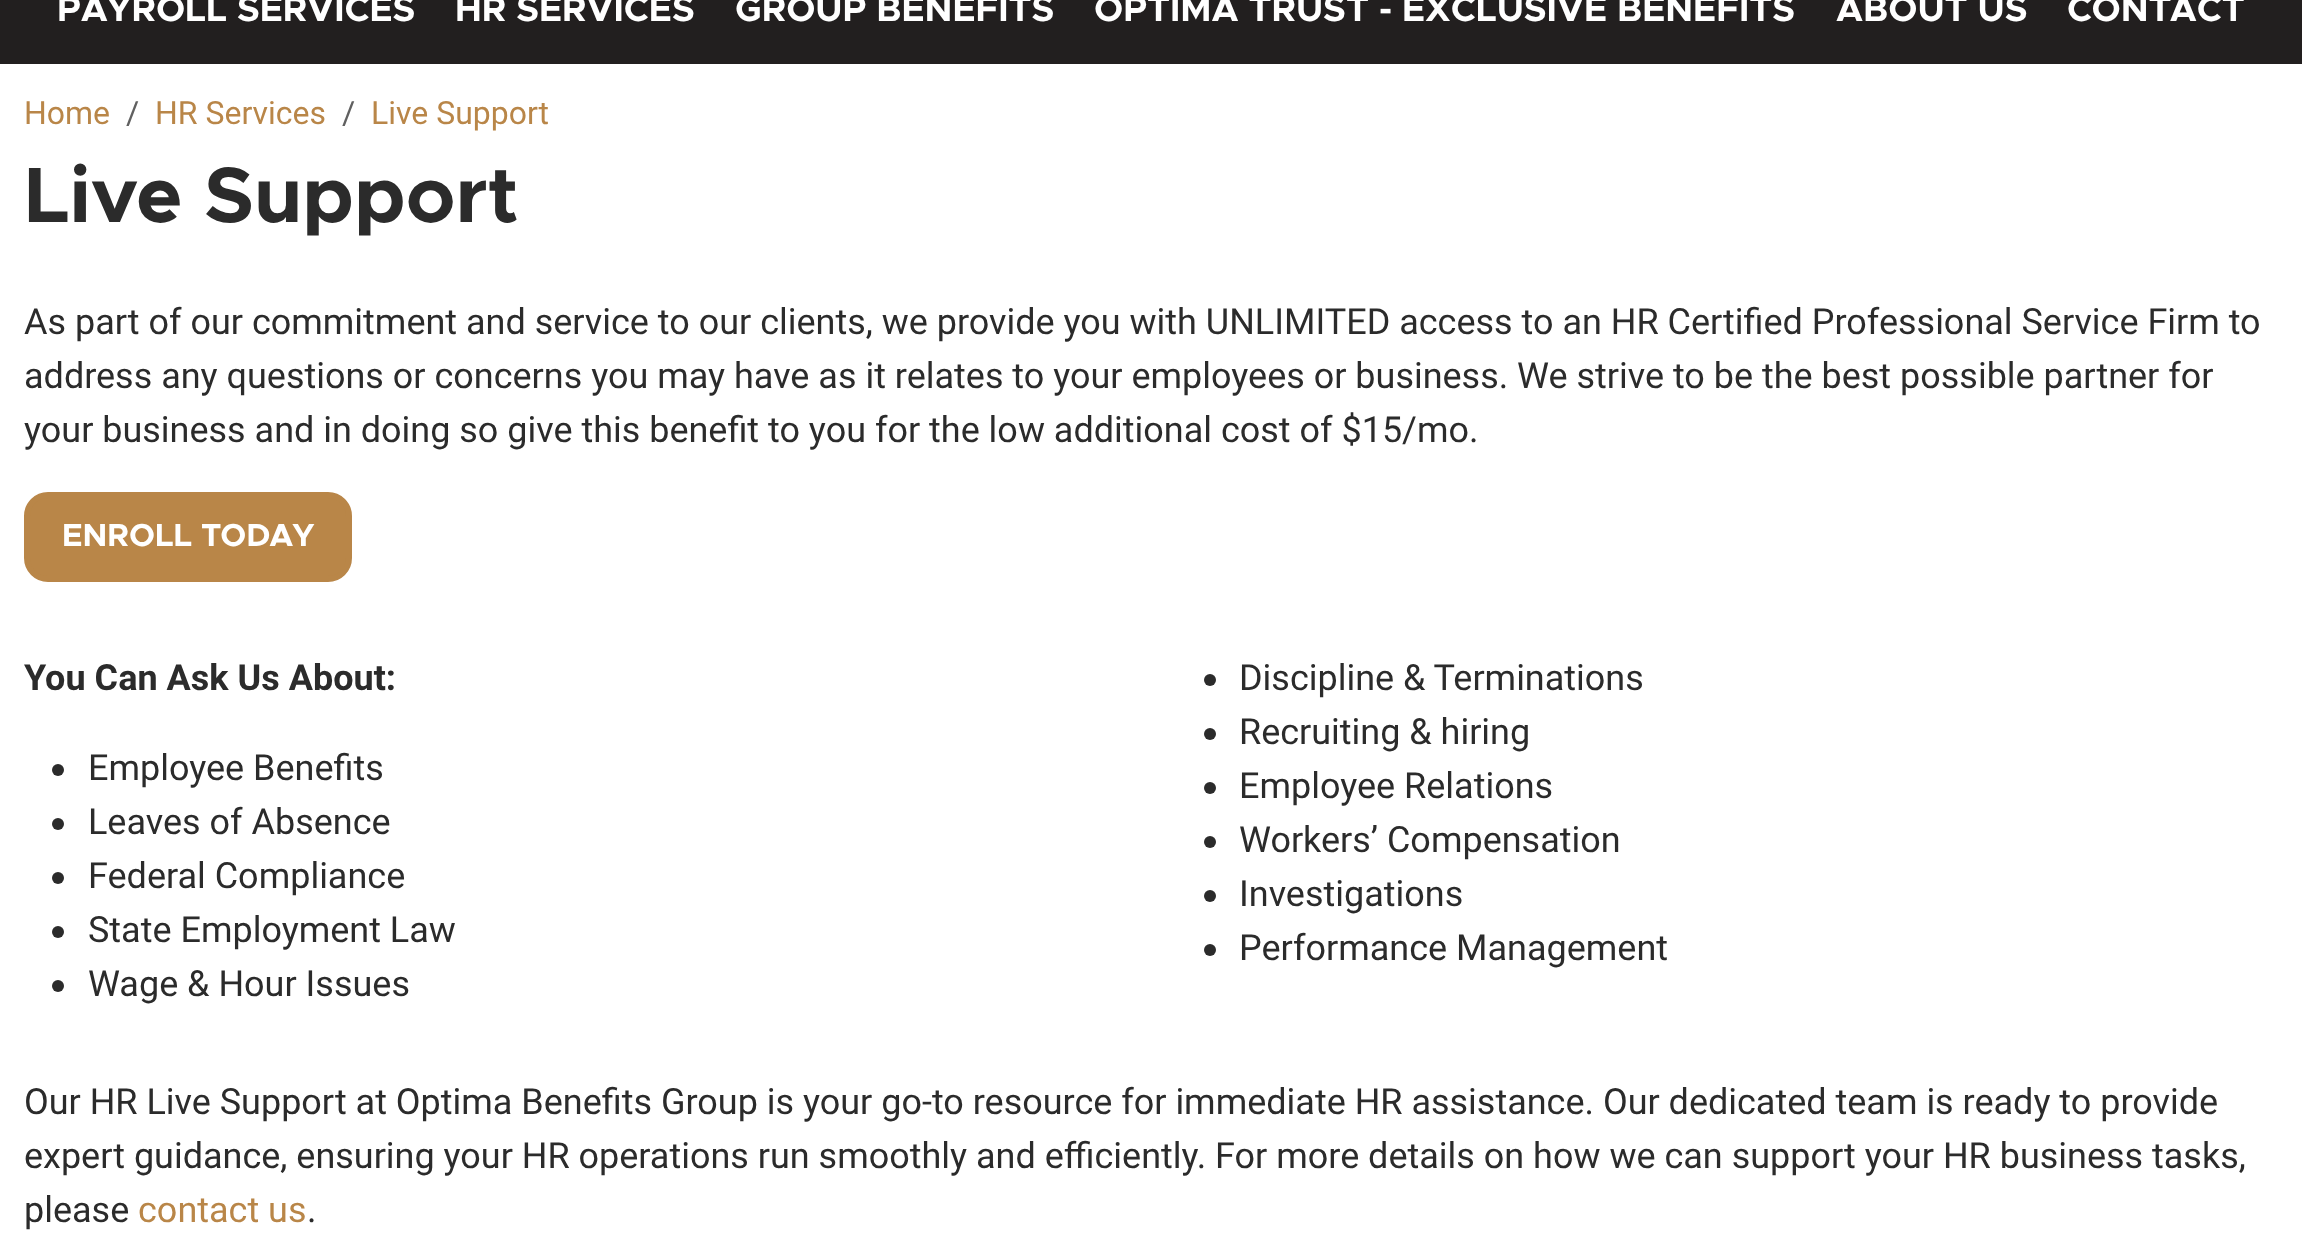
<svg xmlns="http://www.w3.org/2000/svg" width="2302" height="1259">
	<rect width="100%" height="100%" fill="#FFFFFF" />
	<rect x="0" y="0" width="2302" height="64" fill="#221F1F" />
	<g font-family="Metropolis" font-size="36" font-weight="700" fill="#FFFFFF">
		<text x="57" y="21">PAYROLL SERVICES</text>
		<text x="455" y="21">HR SERVICES</text>
		<text x="735" y="21">GROUP BENEFITS</text>
		<text x="1094" y="21">OPTIMA TRUST - EXCLUSIVE BENEFITS</text>
		<text x="1836" y="21">ABOUT US</text>
		<text x="2067" y="21">CONTACT</text>
	</g>
	<text x="24" y="124" font-family="Roboto" font-size="32" fill="#B98648">Home</text>
	<text x="126" y="124" font-family="Roboto" font-size="32" fill="#606060">/</text>
	<text x="155" y="124" font-family="Roboto" font-size="32" fill="#B98648">HR Services</text>
	<text x="342" y="124" font-family="Roboto" font-size="32" fill="#606060">/</text>
	<text x="371" y="124" font-family="Roboto" font-size="32" fill="#B98648">Live Support</text>
	<text x="24" y="222" font-family="Metropolis" font-size="78.5" font-weight="700" fill="#2B2B2B">Live Support</text>
	<g font-family="Roboto" font-size="36" fill="#2B2B2B">
		<text x="24" y="334">As part of our commitment and service to our clients, we provide you with UNLIMITED access to an HR Certified Professional Service Firm to</text>
		<text x="24" y="388">address any questions or concerns you may have as it relates to your employees or business. We strive to be the best possible partner for</text>
		<text x="24" y="442">your business and in doing so give this benefit to you for the low additional cost of $15/mo.</text>
	</g>
	<rect x="27" y="495" width="322" height="84" rx="21" fill="#B98648" stroke="#B98648" stroke-width="6" />
	<text x="62" y="546" font-family="Metropolis" font-size="32" font-weight="700" fill="#FFFFFF">ENROLL TODAY</text>
	<text x="24" y="690" font-family="Roboto" font-size="36" font-weight="700" fill="#2B2B2B">You Can Ask Us About:</text>
	<circle cx="58" cy="770" r="6" fill="#2B2B2B" />
	<text x="88" y="780" font-family="Roboto" font-size="36" fill="#2B2B2B">Employee Benefits</text>
	<circle cx="58" cy="824" r="6" fill="#2B2B2B" />
	<text x="88" y="834" font-family="Roboto" font-size="36" fill="#2B2B2B">Leaves of Absence</text>
	<circle cx="58" cy="878" r="6" fill="#2B2B2B" />
	<text x="88" y="888" font-family="Roboto" font-size="36" fill="#2B2B2B">Federal Compliance</text>
	<circle cx="58" cy="932" r="6" fill="#2B2B2B" />
	<text x="88" y="942" font-family="Roboto" font-size="36" fill="#2B2B2B">State Employment Law</text>
	<circle cx="58" cy="986" r="6" fill="#2B2B2B" />
	<text x="88" y="996" font-family="Roboto" font-size="36" fill="#2B2B2B">Wage &amp; Hour Issues</text>
	<circle cx="1210" cy="680" r="6" fill="#2B2B2B" />
	<text x="1239" y="690" font-family="Roboto" font-size="36" fill="#2B2B2B">Discipline &amp; Terminations</text>
	<circle cx="1210" cy="734" r="6" fill="#2B2B2B" />
	<text x="1239" y="744" font-family="Roboto" font-size="36" fill="#2B2B2B">Recruiting &amp; hiring</text>
	<circle cx="1210" cy="788" r="6" fill="#2B2B2B" />
	<text x="1239" y="798" font-family="Roboto" font-size="36" fill="#2B2B2B">Employee Relations</text>
	<circle cx="1210" cy="842" r="6" fill="#2B2B2B" />
	<text x="1239" y="852" font-family="Roboto" font-size="36" fill="#2B2B2B">Workers’ Compensation</text>
	<circle cx="1210" cy="896" r="6" fill="#2B2B2B" />
	<text x="1239" y="906" font-family="Roboto" font-size="36" fill="#2B2B2B">Investigations</text>
	<circle cx="1210" cy="950" r="6" fill="#2B2B2B" />
	<g font-family="Roboto" font-size="36" fill="#2B2B2B">
		<text x="1239" y="960">Performance Management</text>
		<text x="24" y="1114">Our HR Live Support at Optima Benefits Group is your go-to resource for immediate HR assistance. Our dedicated team is ready to provide</text>
		<text x="24" y="1168">expert guidance, ensuring your HR operations run smoothly and efficiently. For more details on how we can support your HR business tasks,</text>
		<text x="24" y="1222">please</text>
	</g>
	<text x="138" y="1222" font-family="Roboto" font-size="36" fill="#B98648">contact us</text>
	<text x="307" y="1222" font-family="Roboto" font-size="36" fill="#2B2B2B">.</text>
</svg>
